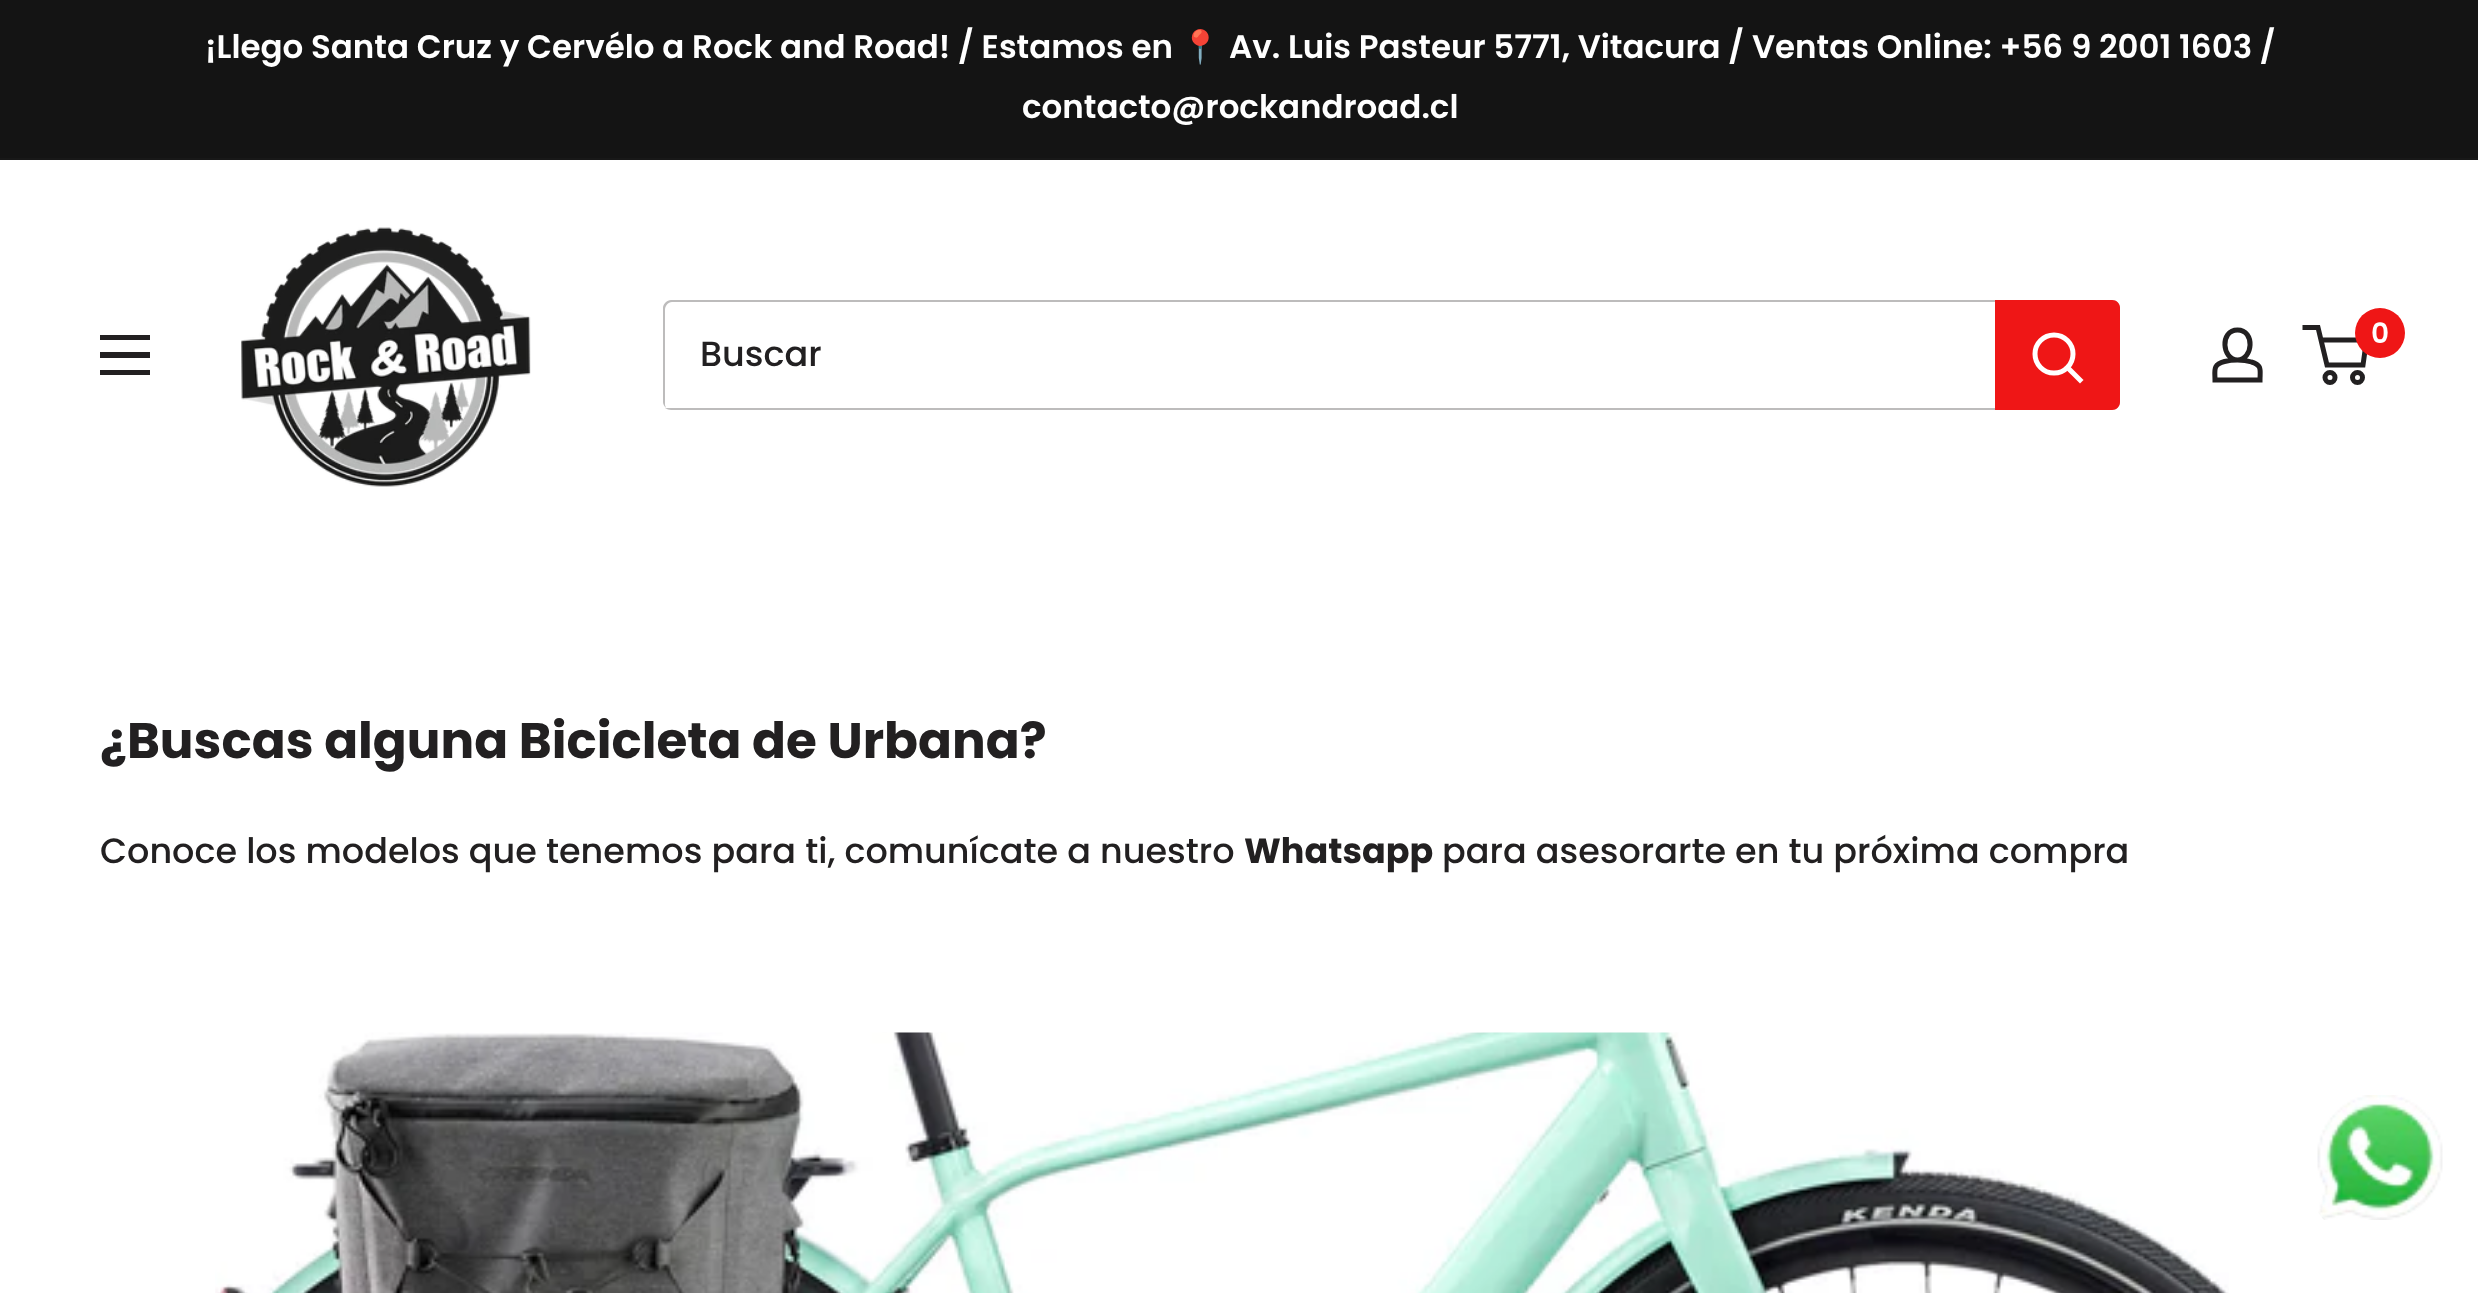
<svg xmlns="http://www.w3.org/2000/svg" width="2478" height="1293">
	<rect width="100%" height="100%" fill="#FFFFFF" />
	<rect x="0" y="0" width="2478" height="158" fill="#141414" />
	<rect x="0" y="158" width="2478" height="2" fill="#181818" />
	<text x="205" y="58" font-family="Poppins" font-size="32.5" font-weight="600" fill="#FFFFFF">¡Llego Santa Cruz y Cervélo a Rock and Road! / Estamos en</text>
	<text x="1180" y="58" font-family="Noto Color Emoji" font-size="32.5" font-weight="700" fill="#FFFFFF">📍</text>
	<g font-family="Poppins" font-size="32.5" font-weight="600" fill="#FFFFFF">
		<text x="1229" y="58">Av. Luis Pasteur 5771, Vitacura / Ventas Online: +56 9 2001 1603 /</text>
		<text x="1022" y="118">contacto@rockandroad.cl</text>
	</g>
	<image x="241" y="227" width="290" height="260" href="assets/img1.png" />
	<path d="M2237.5 360C2242 360 2247 360.5 2251.5 362C2262.5 365 2260 370.5 2260 380H2215C2215 370 2212.5 364.5 2224.5 361.5C2228.5 360.5 2233 360 2237.5 360ZM2237.5 360C2222 360 2219.5 330 2237.5 330C2255.5 330 2253 360 2237.5 360Z" fill="none" stroke="#222021" stroke-width="5" />
	<circle cx="2330" cy="377.5" r="5" fill="none" stroke="#222021" stroke-width="5" />
	<circle cx="2357.5" cy="377.5" r="5" fill="none" stroke="#222021" stroke-width="5" />
	<path d="M2321 340H2366.5L2363 365H2327L2318 327.5H2302.5" fill="none" stroke="#222021" stroke-width="5" />
	<circle cx="2380" cy="333" r="25" fill="#EF1616" />
	<text x="2371" y="343" font-family="Poppins" font-size="28" font-weight="600" fill="#FFFFFF">0</text>
	<path d="M100 370H150V375H100ZM100 335H150V340H100ZM100 352H150V358H100Z" fill="#222021" fill-rule="evenodd" />
	<path d="M665 408C667 409 669 410 671 410H2112C2116 410 2120 406 2120 402V308C2120 306 2119 303 2117 302L2118 305V400C2118 404 2114 408 2110 408H668Z" fill="#BDBCBC" />
	<path d="M672 302H2115L2118 303C2117 301 2114 300 2112 300H671C667 300 663 304 663 308V402C663 404 664 406 666 408L665 405V310C665 306 668 302 672 302Z" fill="#BDBCBC" />
	<text x="700" y="366" font-family="Poppins" font-size="35" font-weight="500" fill="#222021">Buscar</text>
	<path d="M1995 300H2112C2116.5 300 2120 303.5 2120 308V402C2120 406.5 2116.5 410 2112 410H1995Z" fill="#EF1616" />
	<path d="M2080 380L2067.5 367.5" fill="none" stroke="#FFFFFF" stroke-width="5" stroke-linecap="square" />
	<circle cx="2054" cy="354" r="19" fill="none" stroke="#FFFFFF" stroke-width="5" />
	<text x="100" y="758" font-family="Poppins" font-size="50" font-weight="700" fill="#222021">¿Buscas alguna Bicicleta de Urbana?</text>
	<text x="100" y="863" font-family="Poppins" font-size="35" font-weight="500" fill="#222021">Conoce los modelos que tenemos para ti, comunícate a nuestro</text>
	<text x="1244" y="863" font-family="Poppins" font-size="35" font-weight="700" fill="#222021">Whatsapp</text>
	<text x="1442" y="863" font-family="Poppins" font-size="35" font-weight="500" fill="#222021">para asesorarte en tu próxima compra</text>
	<image x="215" y="1032" width="2014" height="261" href="assets/img2.png" />
	<image x="2317" y="1095" width="126" height="125" href="assets/img3.png" />
</svg>
